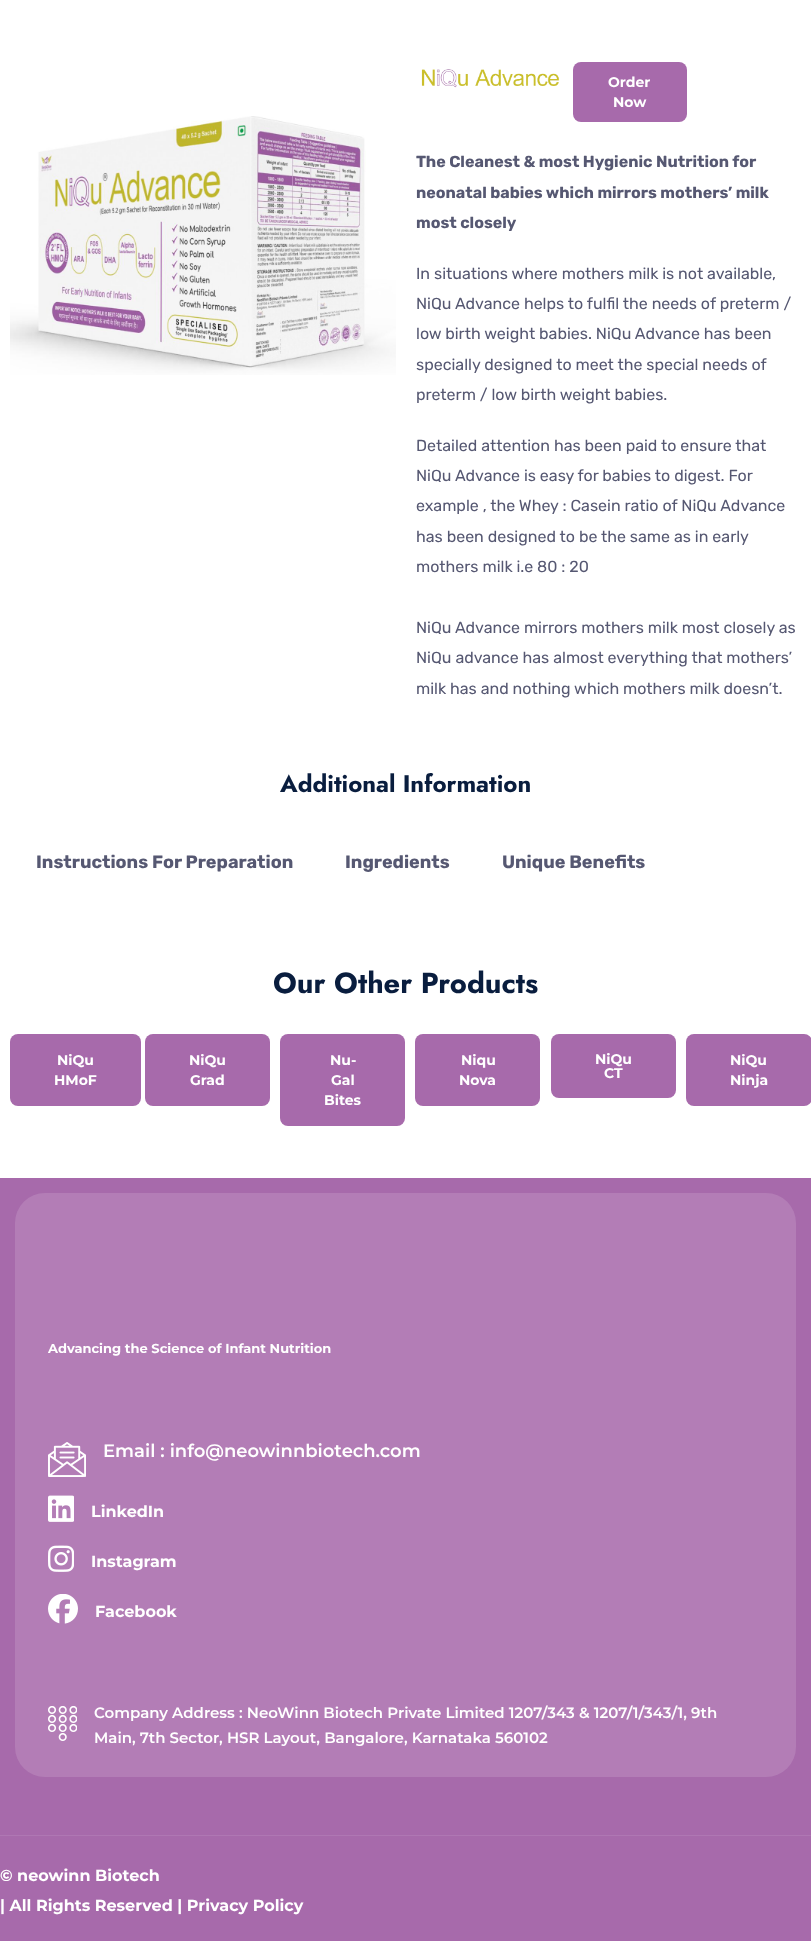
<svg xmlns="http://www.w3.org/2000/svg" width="811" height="1941">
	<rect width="100%" height="100%" fill="#FFFFFF" />
	<image x="10" y="116" width="386" height="259" href="assets/img1.png" />
	<image x="421" y="69" width="139" height="19" href="assets/img2.png" />
	<rect x="573" y="62" width="114" height="60" rx="8" fill="#A76AAB" />
	<g font-family="Montserrat" font-size="14" font-weight="700" fill="#FFFFFF">
		<text x="608" y="87">Order</text>
		<text x="613" y="107">Now</text>
	</g>
	<g font-family="Rubik" font-size="16" font-weight="700" fill="#565872">
		<text x="416" y="167">The Cleanest &amp; most Hygienic Nutrition for</text>
		<text x="416" y="198">neonatal babies which mirrors mothers’ milk</text>
		<text x="416" y="228">most closely</text>
	</g>
	<g font-family="Rubik" font-size="16" fill="#565872">
		<text x="416" y="279">In situations where mothers milk is not available,</text>
		<text x="416" y="309">NiQu Advance helps to fulfil the needs of preterm /</text>
		<text x="416" y="339">low birth weight babies. NiQu Advance has been</text>
		<text x="416" y="370">specially designed to meet the special needs of</text>
		<text x="416" y="400">preterm / low birth weight babies.</text>
		<text x="416" y="451">Detailed attention has been paid to ensure that</text>
		<text x="416" y="481">NiQu Advance is easy for babies to digest. For</text>
		<text x="416" y="511">example , the Whey : Casein ratio of NiQu Advance</text>
		<text x="416" y="542">has been designed to be the same as in early</text>
		<text x="416" y="572">mothers milk i.e 80 : 20</text>
		<text x="416" y="633">NiQu Advance mirrors mothers milk most closely as</text>
		<text x="416" y="663">NiQu advance has almost everything that mothers’</text>
		<text x="416" y="694">milk has and nothing which mothers milk doesn’t.</text>
	</g>
	<text x="280" y="792" font-family="Jost" font-size="24" font-weight="700" fill="#091D3E">Additional Information</text>
	<g font-family="Rubik" font-size="18" font-weight="700" fill="#565872">
		<text x="36" y="868">Instructions For Preparation</text>
		<text x="345" y="868">Ingredients</text>
		<text x="502" y="868">Unique Benefits</text>
	</g>
	<text x="273" y="993" font-family="Jost" font-size="29" font-weight="700" fill="#091D3E">Our Other Products</text>
	<rect x="10" y="1034" width="131" height="72" rx="8" fill="#A76AAB" />
	<g font-family="Montserrat" font-size="14" font-weight="700" fill="#FFFFFF">
		<text x="57" y="1065">NiQu</text>
		<text x="54" y="1085">HMoF</text>
	</g>
	<rect x="145" y="1034" width="125" height="72" rx="8" fill="#A76AAB" />
	<g font-family="Montserrat" font-size="14" font-weight="700" fill="#FFFFFF">
		<text x="189" y="1065">NiQu</text>
		<text x="190" y="1085">Grad</text>
	</g>
	<rect x="280" y="1034" width="125" height="92" rx="8" fill="#A76AAB" />
	<g font-family="Montserrat" font-size="14" font-weight="700" fill="#FFFFFF">
		<text x="330" y="1065">Nu-</text>
		<text x="331" y="1085">Gal</text>
		<text x="324" y="1105">Bites</text>
	</g>
	<rect x="415" y="1034" width="125" height="72" rx="8" fill="#A76AAB" />
	<g font-family="Montserrat" font-size="14" font-weight="700" fill="#FFFFFF">
		<text x="461" y="1065">Niqu</text>
		<text x="459" y="1085">Nova</text>
	</g>
	<rect x="551" y="1034" width="125" height="64" rx="8" fill="#A76AAB" />
	<g font-family="Montserrat" font-size="14" font-weight="700" fill="#FFFFFF">
		<text x="595" y="1064">NiQu</text>
		<text x="604" y="1078">CT</text>
	</g>
	<rect x="686" y="1034" width="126" height="72" rx="8" fill="#A76AAB" />
	<g font-family="Montserrat" font-size="14" font-weight="700" fill="#FFFFFF">
		<text x="730" y="1065">NiQu</text>
		<text x="730" y="1085">Ninja</text>
	</g>
	<rect x="0" y="1178" width="811" height="763" fill="#A76AAB" />
	<rect x="15" y="1193" width="781" height="584" rx="30" fill="#B37DB6" />
	<text x="48" y="1353" font-family="Montserrat" font-size="13" font-weight="700" fill="#FFFFFF">Advancing the Science of Infant Nutrition</text>
	<image x="48" y="1442" width="38" height="35" href="assets/img3.png" />
	<text x="103" y="1457" font-family="Montserrat" font-size="18" font-weight="600" fill="#FFFFFF">Email : info@neowinnbiotech.com</text>
	<image x="48" y="1495" width="26" height="27" href="assets/img4.png" />
	<text x="91" y="1517" font-family="Montserrat" font-size="16" font-weight="700" fill="#FFFFFF">LinkedIn</text>
	<image x="48" y="1545" width="26" height="27" href="assets/img5.png" />
	<text x="91" y="1567" font-family="Montserrat" font-size="16" font-weight="700" fill="#FFFFFF">Instagram</text>
	<image x="48" y="1594" width="30" height="30" href="assets/img6.png" />
	<text x="95" y="1617" font-family="Montserrat" font-size="16" font-weight="700" fill="#FFFFFF">Facebook</text>
	<image x="48" y="1706" width="29" height="35" href="assets/img7.png" />
	<g font-family="Montserrat" font-size="15" font-weight="600" fill="#FFFFFF">
		<text x="94" y="1718">Company Address : NeoWinn Biotech Private Limited 1207/343 &amp; 1207/1/343/1, 9th</text>
		<text x="94" y="1743">Main, 7th Sector, HSR Layout, Bangalore, Karnataka 560102</text>
	</g>
	<rect x="0" y="1835" width="811" height="1" fill="#AF77B3" />
	<g font-family="Montserrat" font-size="16" font-weight="700" fill="#FFFFFF">
		<text x="0" y="1881">© neowinn Biotech</text>
		<text x="0" y="1911">| All Rights Reserved | Privacy Policy</text>
	</g>
</svg>
